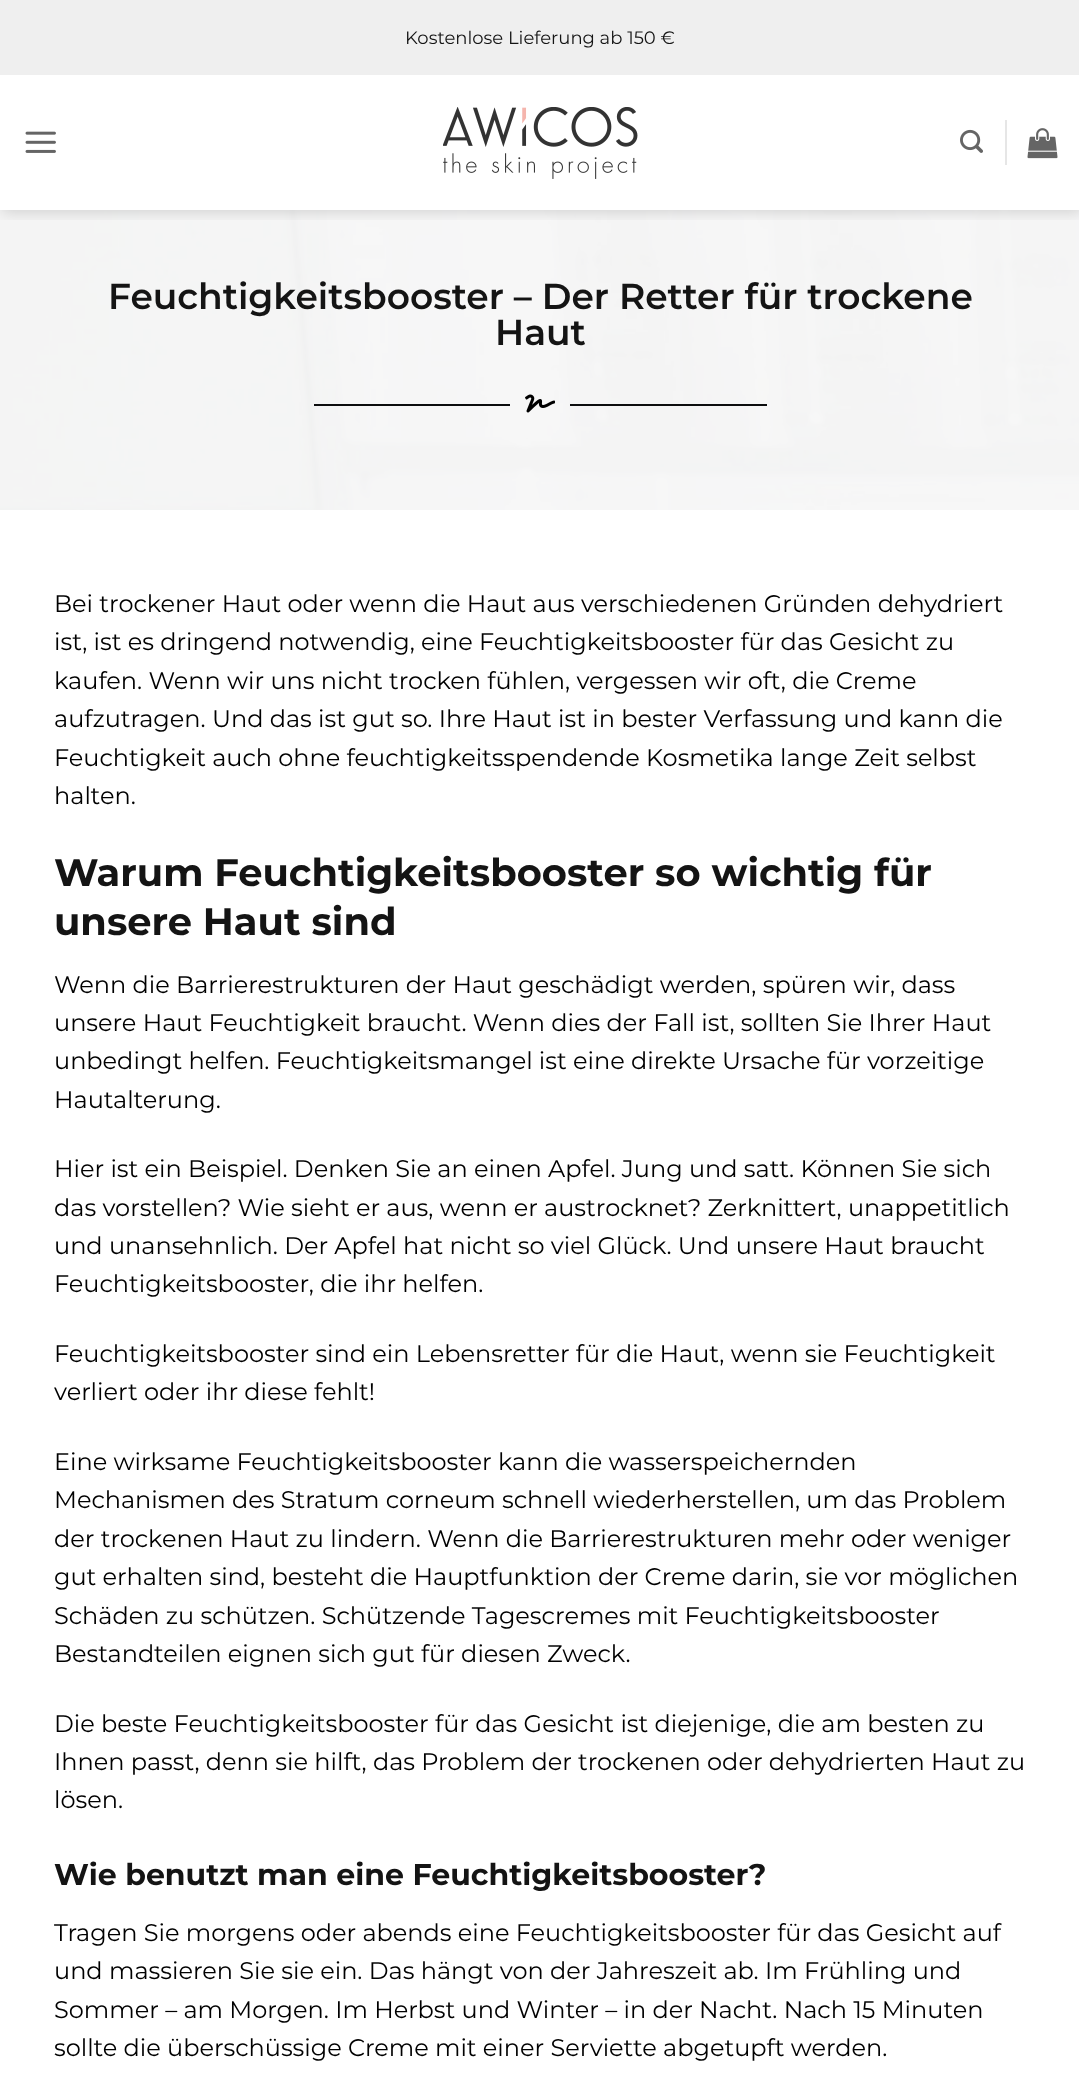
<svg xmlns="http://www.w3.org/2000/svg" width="1079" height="2100">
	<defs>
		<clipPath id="clip1"><rect x="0" y="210" width="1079" height="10" /></clipPath>
	</defs>
	<rect width="100%" height="100%" fill="#FFFFFF" />
	<image x="0" y="210" width="1079" height="300" href="assets/img5.png" />
	<g clip-path="url(#clip1)">
		<rect x="2" y="2" width="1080" height="210" fill="#000000" fill-opacity="0.15" filter="blur(7.5px)" />
	</g>
	<rect x="0" y="0" width="1079" height="75" fill="#EFEFEF" />
	<text x="405" y="44" font-family="Montserrat" font-size="18" fill="#141414">Kostenlose Lieferung ab 150 €</text>
	<image x="25" y="131" width="31" height="22" href="assets/img1.png" />
	<image x="443" y="107" width="195" height="72" href="assets/img2.png" />
	<image x="960" y="129" width="23" height="24" href="assets/img3.png" />
	<rect x="1005" y="120" width="2" height="45" fill="#E6E6E6" />
	<image x="1027" y="128" width="31" height="31" href="assets/img4.png" />
	<g font-family="Montserrat" font-size="36" font-weight="600" fill="#141414">
		<text x="108" y="309">Feuchtigkeitsbooster – Der Retter für trockene</text>
		<text x="495" y="345">Haut</text>
	</g>
	<rect x="314" y="404" width="196" height="2" fill="#0C0D0E" />
	<image x="525" y="394" width="30" height="19" href="assets/img6.png" />
	<rect x="570" y="404" width="197" height="2" fill="#0C0D0E" />
	<g font-family="Montserrat" font-size="24" fill="#000000">
		<text x="54" y="612">Bei trockener Haut oder wenn die Haut aus verschiedenen Gründen dehydriert</text>
		<text x="54" y="650">ist, ist es dringend notwendig, eine Feuchtigkeitsbooster für das Gesicht zu</text>
		<text x="54" y="689">kaufen. Wenn wir uns nicht trocken fühlen, vergessen wir oft, die Creme</text>
		<text x="54" y="727">aufzutragen. Und das ist gut so. Ihre Haut ist in bester Verfassung und kann die</text>
		<text x="54" y="766">Feuchtigkeit auch ohne feuchtigkeitsspendende Kosmetika lange Zeit selbst</text>
		<text x="54" y="804">halten.</text>
	</g>
	<g font-family="Montserrat" font-size="38.4" font-weight="700" fill="#141414">
		<text x="54" y="886">Warum Feuchtigkeitsbooster so wichtig für</text>
		<text x="54" y="935">unsere Haut sind</text>
	</g>
	<g font-family="Montserrat" font-size="24" fill="#000000">
		<text x="54" y="993">Wenn die Barrierestrukturen der Haut geschädigt werden, spüren wir, dass</text>
		<text x="54" y="1031">unsere Haut Feuchtigkeit braucht. Wenn dies der Fall ist, sollten Sie Ihrer Haut</text>
		<text x="54" y="1069">unbedingt helfen. Feuchtigkeitsmangel ist eine direkte Ursache für vorzeitige</text>
		<text x="54" y="1108">Hautalterung.</text>
		<text x="54" y="1177">Hier ist ein Beispiel. Denken Sie an einen Apfel. Jung und satt. Können Sie sich</text>
		<text x="54" y="1216">das vorstellen? Wie sieht er aus, wenn er austrocknet? Zerknittert, unappetitlich</text>
		<text x="54" y="1254">und unansehnlich. Der Apfel hat nicht so viel Glück. Und unsere Haut braucht</text>
		<text x="54" y="1292">Feuchtigkeitsbooster, die ihr helfen.</text>
		<text x="54" y="1362">Feuchtigkeitsbooster sind ein Lebensretter für die Haut, wenn sie Feuchtigkeit</text>
		<text x="54" y="1400">verliert oder ihr diese fehlt!</text>
		<text x="54" y="1470">Eine wirksame Feuchtigkeitsbooster kann die wasserspeichernden</text>
		<text x="54" y="1508">Mechanismen des Stratum corneum schnell wiederherstellen, um das Problem</text>
		<text x="54" y="1547">der trockenen Haut zu lindern. Wenn die Barrierestrukturen mehr oder weniger</text>
		<text x="54" y="1585">gut erhalten sind, besteht die Hauptfunktion der Creme darin, sie vor möglichen</text>
		<text x="54" y="1624">Schäden zu schützen. Schützende Tagescremes mit Feuchtigkeitsbooster</text>
		<text x="54" y="1662">Bestandteilen eignen sich gut für diesen Zweck.</text>
		<text x="54" y="1732">Die beste Feuchtigkeitsbooster für das Gesicht ist diejenige, die am besten zu</text>
		<text x="54" y="1770">Ihnen passt, denn sie hilft, das Problem der trockenen oder dehydrierten Haut zu</text>
		<text x="54" y="1808">lösen.</text>
	</g>
	<text x="54" y="1885" font-family="Montserrat" font-size="30" font-weight="700" fill="#141414">Wie benutzt man eine Feuchtigkeitsbooster?</text>
	<g font-family="Montserrat" font-size="24" fill="#000000">
		<text x="54" y="1941">Tragen Sie morgens oder abends eine Feuchtigkeitsbooster für das Gesicht auf</text>
		<text x="54" y="1979">und massieren Sie sie ein. Das hängt von der Jahreszeit ab. Im Frühling und</text>
		<text x="54" y="2018">Sommer – am Morgen. Im Herbst und Winter – in der Nacht. Nach 15 Minuten</text>
		<text x="54" y="2056">sollte die überschüssige Creme mit einer Serviette abgetupft werden.</text>
	</g>
</svg>
